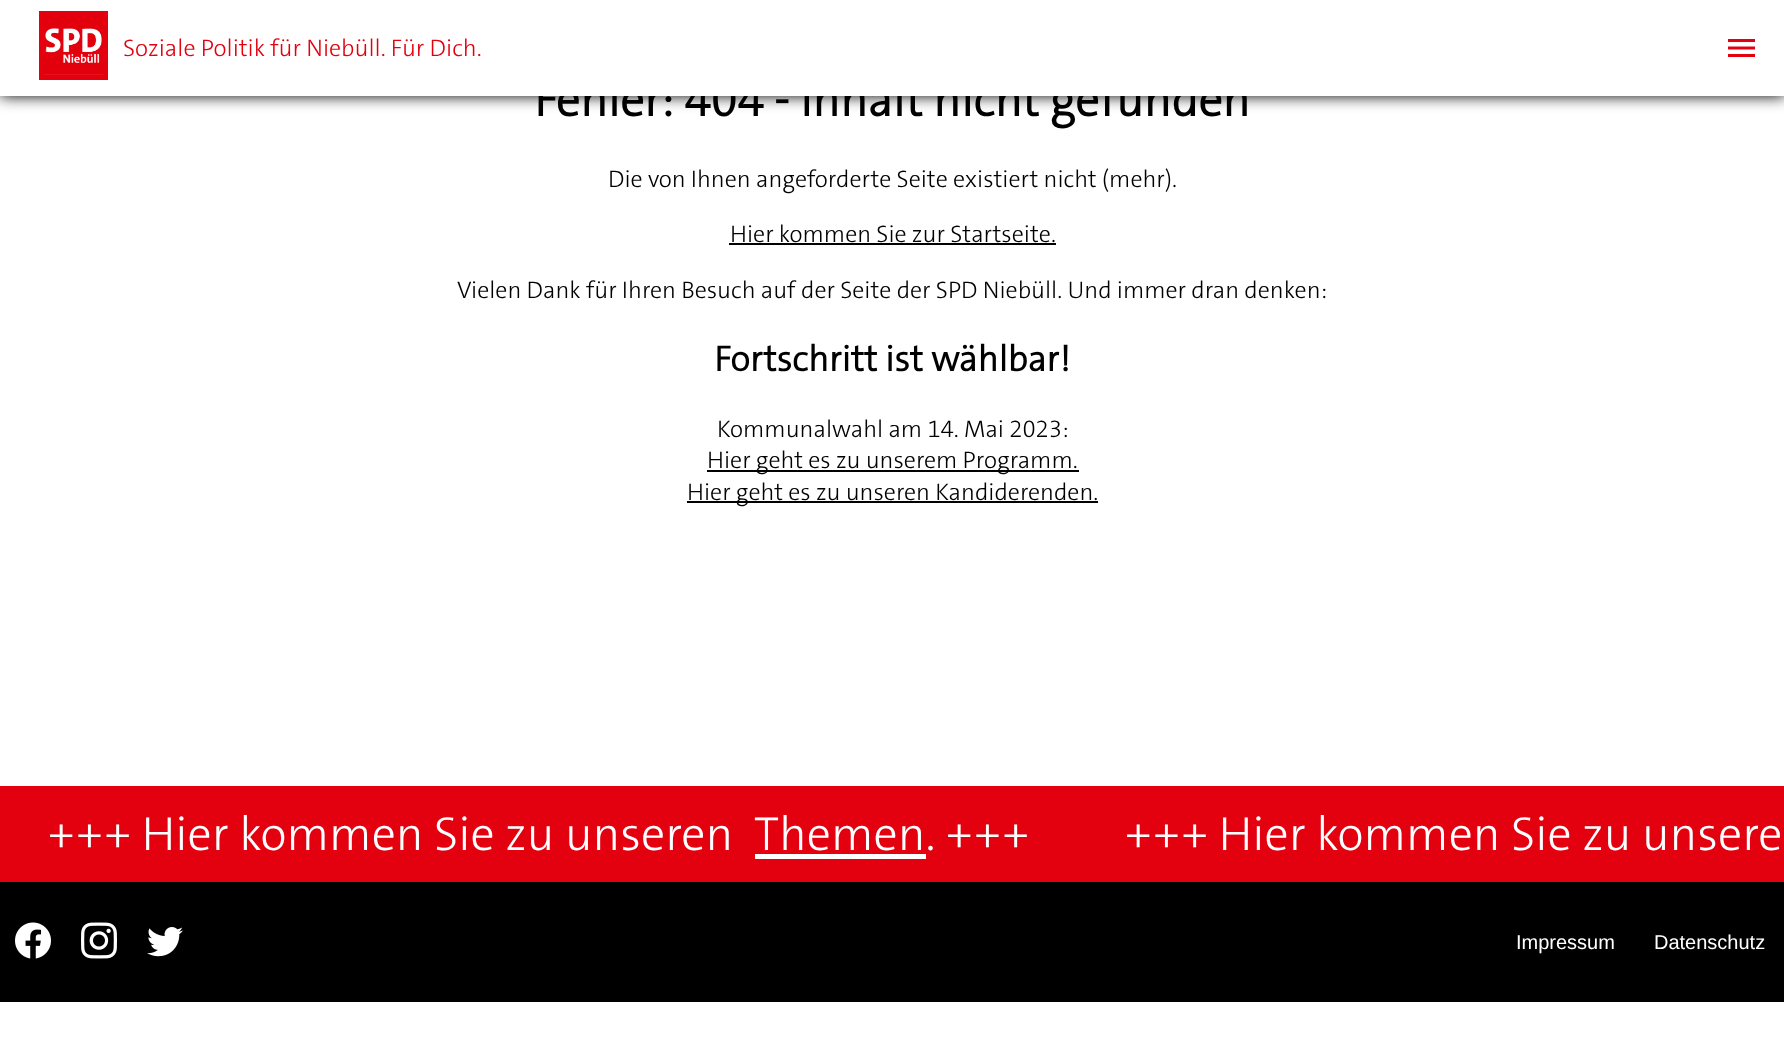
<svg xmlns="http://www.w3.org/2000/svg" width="1784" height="1052">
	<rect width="100%" height="100%" fill="#FFFFFF" />
	<rect x="0" y="0" width="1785" height="96" fill="#000000" filter="blur(7.5px)" />
	<text x="534" y="116" font-family="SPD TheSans" font-size="48" font-weight="700" fill="#000000">Fehler: 404 - Inhalt nicht gefunden</text>
	<rect x="0" y="0" width="1784" height="96" fill="#FFFFFF" />
	<rect x="41.5" y="13.5" width="64" height="64" fill="none" stroke="#E3000F" stroke-width="5" />
	<image x="44" y="16" width="59" height="59" href="assets/img1.png" />
	<text x="123" y="56" font-family="SPD TheSans" font-size="24" font-weight="300" fill="#E3000F">Soziale Politik für Niebüll. Für Dich.</text>
	<image x="1728" y="39" width="27" height="18" href="assets/img2.png" />
	<g font-family="SPD TheSans" font-size="24" font-weight="300" fill="#000000">
		<text x="608" y="187">Die von Ihnen angeforderte Seite existiert nicht (mehr).</text>
		<text x="730" y="242">Hier kommen Sie zur Startseite.</text>
	</g>
	<rect x="729" y="243" width="327" height="2" fill="#000000" />
	<text x="457" y="298" font-family="SPD TheSans" font-size="24" font-weight="300" fill="#000000">Vielen Dank für Ihren Besuch auf der Seite der SPD Niebüll. Und immer dran denken:</text>
	<text x="714" y="371" font-family="SPD TheSans" font-size="36" font-weight="700" fill="#000000">Fortschritt ist wählbar!</text>
	<text x="717" y="437" font-family="SPD TheSans" font-size="24" font-weight="300" fill="#000000">Kommunalwahl am 14. Mai 2023:</text>
	<rect x="707" y="470" width="372" height="2" fill="#000000" />
	<text x="707" y="468" font-family="SPD TheSans" font-size="24" font-weight="300" fill="#000000">Hier geht es zu unserem Programm.</text>
	<rect x="687" y="501" width="411" height="2" fill="#000000" />
	<text x="687" y="500" font-family="SPD TheSans" font-size="24" font-weight="300" fill="#000000">Hier geht es zu unseren Kandiderenden.</text>
	<rect x="0" y="786" width="1784" height="96" fill="#E3000F" />
	<g font-family="SPD TheSans" font-size="48" font-weight="300" fill="#FFFFFF">
		<text x="48" y="850">+++ Hier kommen Sie zu unseren</text>
		<text x="754" y="850">Themen. +++</text>
	</g>
	<rect x="755" y="854" width="171" height="5" fill="#FFFFFF" />
	<text x="1125" y="850" font-family="SPD TheSans" font-size="48" font-weight="300" fill="#FFFFFF">+++ Hier kommen Sie zu unsere</text>
	<rect x="0" y="882" width="1784" height="120" fill="#000000" />
	<image x="15" y="922" width="36" height="37" href="assets/img3.png" />
	<image x="81" y="922" width="36" height="37" href="assets/img4.png" />
	<image x="147" y="927" width="36" height="30" href="assets/img5.png" />
	<g font-family="Liberation Sans" font-size="20" fill="#FFFFFF">
		<text x="1516" y="949">Impressum</text>
		<text x="1654" y="949">Datenschutz</text>
	</g>
</svg>
